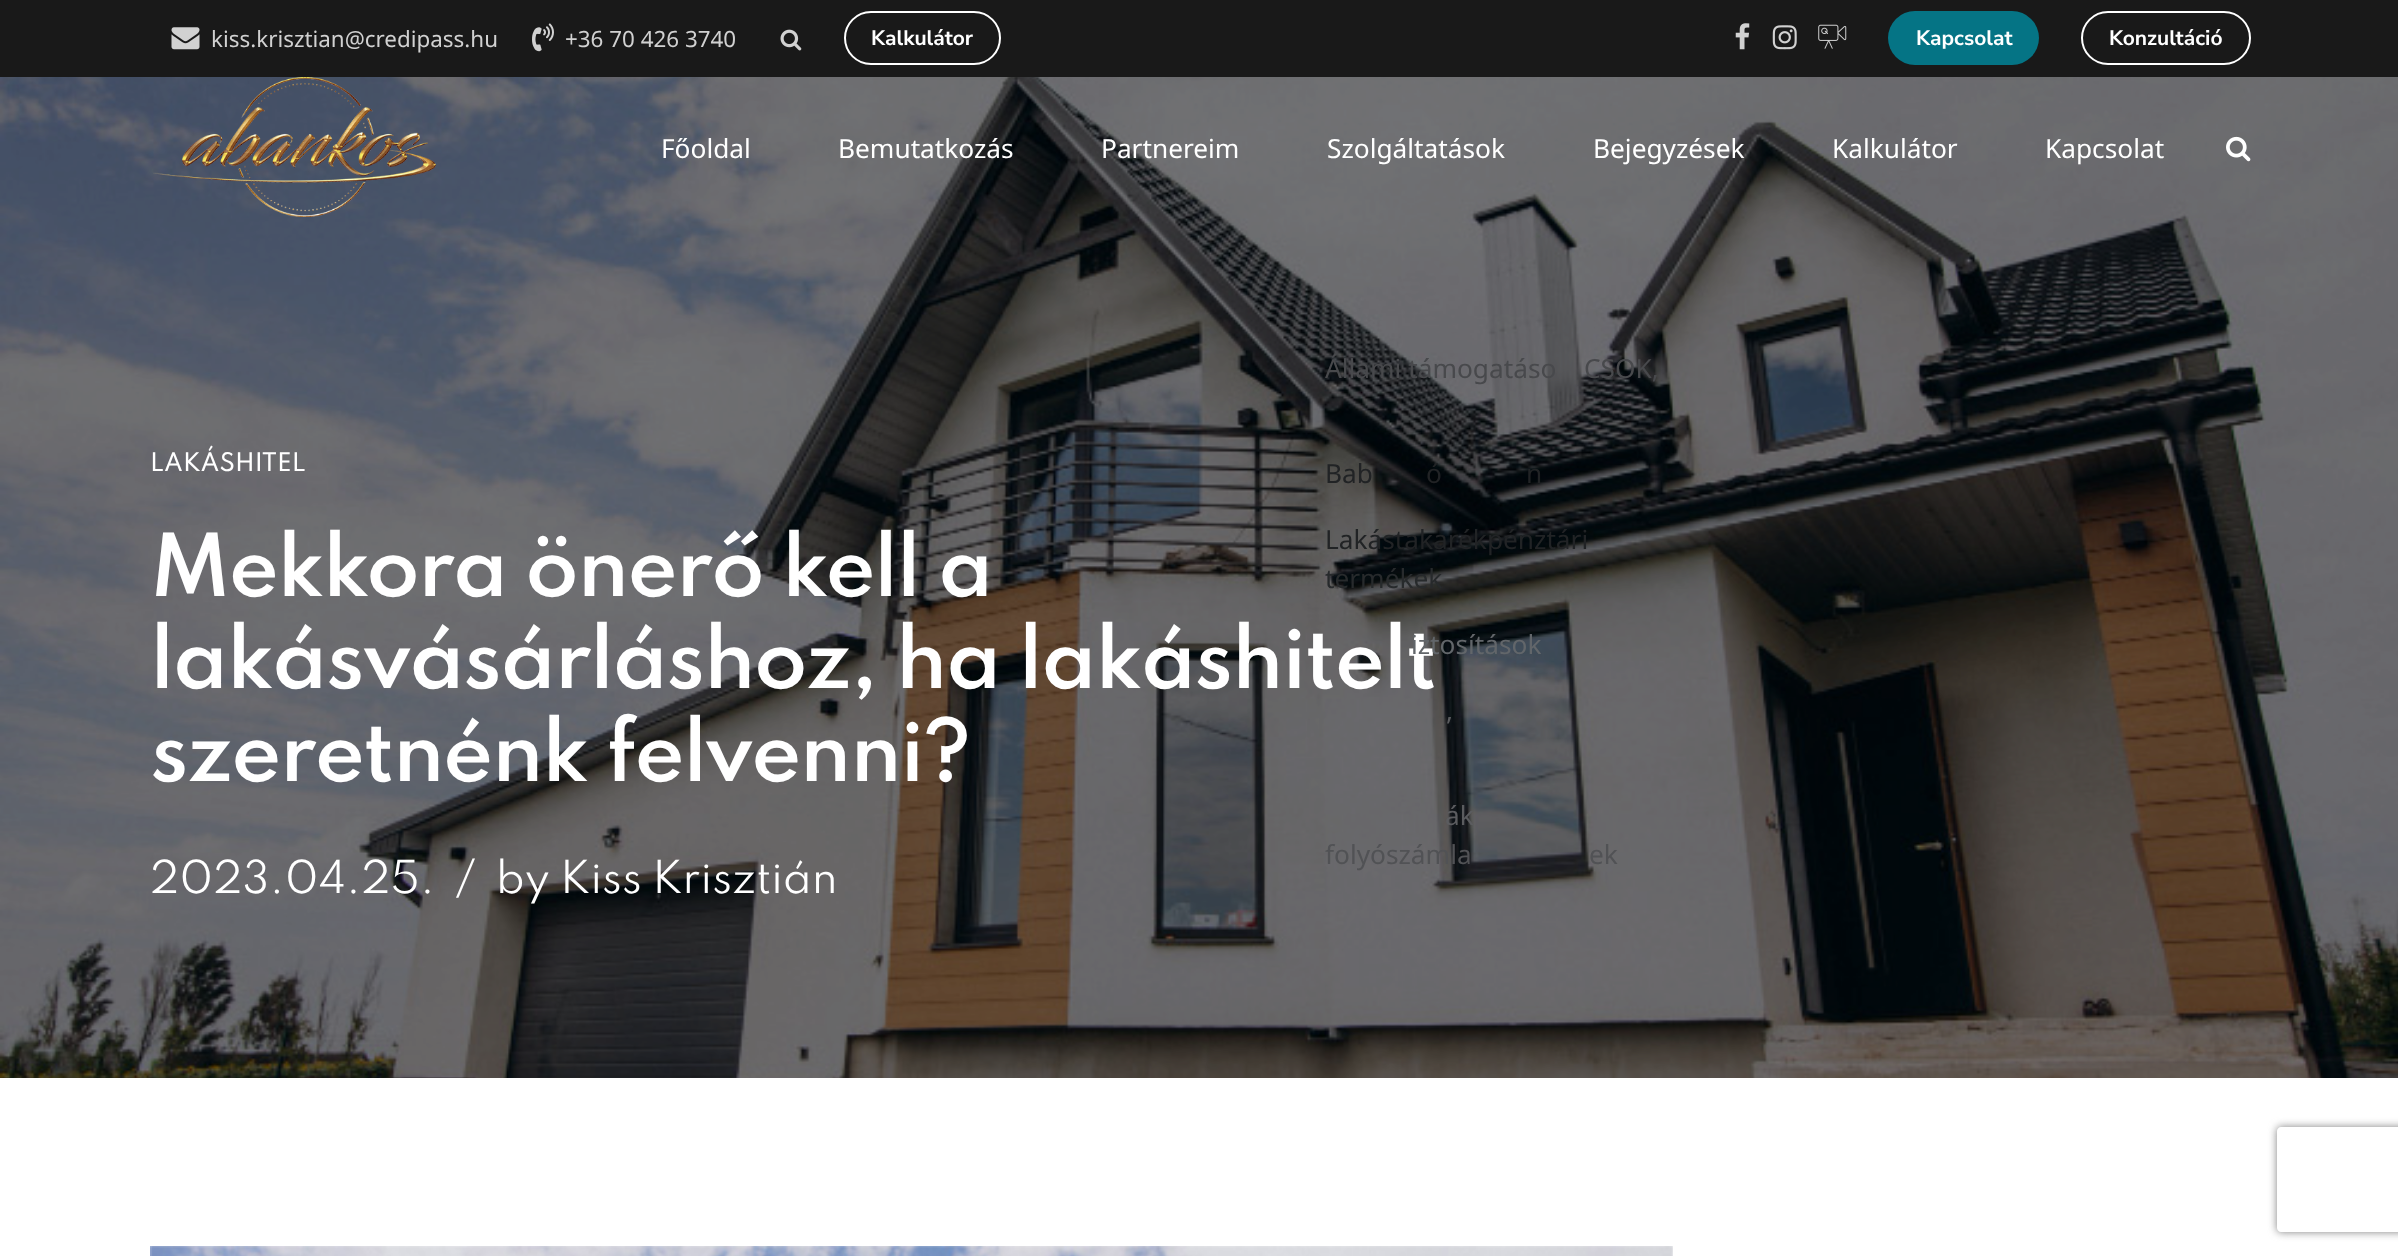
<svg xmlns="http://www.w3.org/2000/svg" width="2398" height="1256">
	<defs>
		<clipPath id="clip1"><path d="M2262 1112H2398V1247H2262ZM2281 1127H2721C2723 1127 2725 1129 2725 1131V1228C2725 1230 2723 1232 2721 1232H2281C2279 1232 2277 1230 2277 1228V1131C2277 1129 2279 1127 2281 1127Z" clip-rule="evenodd" /></clipPath>
	</defs>
	<rect width="100%" height="100%" fill="#FFFFFF" />
	<rect x="0" y="0" width="2398" height="77" fill="#191919" />
	<image x="171" y="27" width="29" height="23" href="assets/img1.png" />
	<text x="211" y="47" font-family="Noto Sans" font-size="22.4" fill="#D1D1D1">kiss.krisztian@credipass.hu</text>
	<image x="532" y="23" width="22" height="29" href="assets/img2.png" />
	<text x="565" y="47" font-family="Noto Sans" font-size="22.4" fill="#D1D1D1">+36 70 426 3740</text>
	<image x="780" y="29" width="22" height="22" href="assets/img3.png" />
	<rect x="845" y="12" width="155" height="52" rx="26" fill="none" stroke="#FFFFFF" stroke-width="2" />
	<text x="871" y="45" font-family="Nunito Sans" font-size="21" font-weight="700" fill="#FFFFFF">Kalkulátor</text>
	<image x="1735" y="23" width="15" height="27" href="assets/img4.png" />
	<image x="1772" y="25" width="25" height="25" href="assets/img5.png" />
	<image x="1818" y="24" width="29" height="25" href="assets/img6.png" />
	<rect x="1888" y="11" width="151" height="54" rx="27" fill="#057485" />
	<text x="1916" y="45" font-family="Nunito Sans" font-size="21" font-weight="700" fill="#FFFFFF">Kapcsolat</text>
	<rect x="2082" y="12" width="168" height="52" rx="26" fill="none" stroke="#FFFFFF" stroke-width="2" />
	<text x="2109" y="45" font-family="Nunito Sans" font-size="21" font-weight="700" fill="#FFFFFF">Konzultáció</text>
	<image x="0" y="77" width="2398" height="1001" href="assets/img9.png" />
	<image x="153" y="77" width="283" height="140" href="assets/img7.png" />
	<g font-family="Noto Sans" font-size="26.25" fill="#FFFFFF">
		<text x="661" y="158">Főoldal</text>
		<text x="838" y="158">Bemutatkozás</text>
		<text x="1101" y="158">Partnereim</text>
		<text x="1327" y="158">Szolgáltatások</text>
	</g>
	<g font-family="Noto Sans" font-size="26.25" fill="#48494C">
		<text x="1325" y="378">Állami támogatáso</text>
		<text x="1584" y="378">CSOK,</text>
	</g>
	<g font-family="Noto Sans" font-size="26.25" fill="#212325">
		<text x="1325" y="483">Bab</text>
		<text x="1426" y="483">ó</text>
		<text x="1526" y="483">n</text>
		<text x="1325" y="549">Lakástakarékpénztári</text>
	</g>
	<text x="1325" y="588" font-family="Noto Sans" font-size="26.25" fill="#272A2C">termékek</text>
	<text x="150" y="688" font-family="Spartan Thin" font-size="77" font-weight="600" letter-spacing="-1.75" fill="#FFFFFF">lakásvásárláshoz, ha lakáshitelt</text>
	<text x="1411" y="654" font-family="Noto Sans" font-size="26.25" fill="#62666A">iztosítások</text>
	<g font-family="Noto Sans" font-size="26.25" fill="#5B5C5F">
		<text x="1446" y="720">,</text>
		<text x="1445" y="825">ák</text>
	</g>
	<g font-family="Noto Sans" font-size="26.25" fill="#515255">
		<text x="1325" y="864">folyószámla</text>
		<text x="1589" y="864">ek</text>
	</g>
	<g font-family="Noto Sans" font-size="26.25" fill="#FFFFFF">
		<text x="1593" y="158">Bejegyzések</text>
		<text x="1832" y="158">Kalkulátor</text>
		<text x="2045" y="158">Kapcsolat</text>
	</g>
	<image x="2226" y="136" width="25" height="26" href="assets/img8.png" />
	<text x="150" y="471" font-family="Spartan Thin" font-size="22.75" font-weight="500" fill="#FFFFFF">LAKÁSHITEL</text>
	<g font-family="Spartan Thin" font-size="77" font-weight="600" letter-spacing="-1.75" fill="#FFFFFF">
		<text x="150" y="596">Mekkora önerő kell a</text>
		<text x="150" y="781">szeretnénk felvenni?</text>
	</g>
	<g font-family="Spartan Thin" font-size="40.25" fill="#FFFFFF">
		<text x="150" y="893">2023.04.25.</text>
		<text x="455" y="893">/</text>
		<text x="496" y="893">by Kiss Krisztián</text>
	</g>
	<image x="150" y="1246" width="1523" height="10" href="assets/img10.png" />
	<g clip-path="url(#clip1)">
		<rect x="2277" y="1127" width="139" height="105" rx="4" fill="#808080" filter="blur(4.5px)" />
	</g>
</svg>
